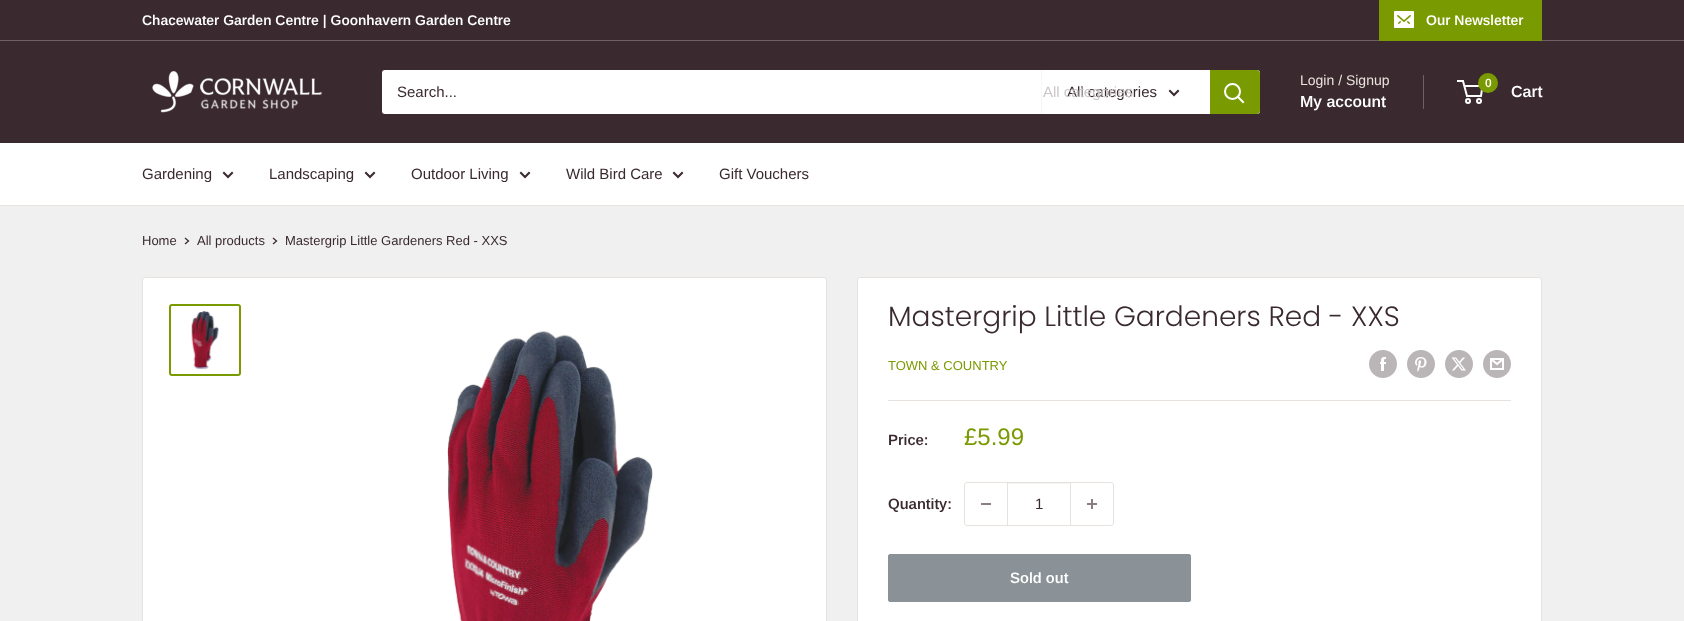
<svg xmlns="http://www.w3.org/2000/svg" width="1684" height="621">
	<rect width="100%" height="100%" fill="#F0F0F0" />
	<rect x="0" y="0" width="1684" height="40" fill="#3A2A2F" />
	<rect x="0" y="40" width="1684" height="1" fill="#6F6163" />
	<text x="142" y="25" font-family="Arimo" font-size="14" font-weight="600" fill="#FFFFFF">Chacewater Garden Centre | Goonhavern Garden Centre</text>
	<rect x="1379" y="0" width="163" height="41" fill="#7A9A01" />
	<image x="1394" y="11" width="20" height="17" href="assets/img1.png" />
	<text x="1426" y="25" font-family="Arimo" font-size="14" font-weight="600" fill="#FFFFFF">Our Newsletter</text>
	<rect x="0" y="41" width="1684" height="102" fill="#3A2A2F" />
	<image x="152" y="71" width="170" height="42" href="assets/img2.png" />
	<rect x="382" y="70" width="878" height="44" rx="3" fill="#FFFFFF" />
	<text x="397" y="97" font-family="Arimo" font-size="15" fill="#3A2A2F">Search...</text>
	<rect x="1041" y="70" width="1" height="44" fill="#F8F6F5" />
	<text x="1067" y="97" font-family="Arimo" font-size="15" fill="#3A2A2F">All categories</text>
	<text x="1043" y="97" font-family="Arimo" font-size="15" fill="#CBC7C8">All categories</text>
	<path d="M1178 91L1174 95L1170 91" fill="none" stroke="#3A2A2F" stroke-width="2" stroke-linecap="square" />
	<path d="M1210 70H1257C1258.5 70 1260 71.5 1260 73V111C1260 112.5 1258.5 114 1257 114H1210Z" fill="#7A9A01" />
	<path d="M1243 102L1238 97" fill="none" stroke="#FFFFFF" stroke-width="2" stroke-linecap="square" />
	<circle cx="1232.5" cy="91.5" r="7.5" fill="none" stroke="#FFFFFF" stroke-width="2" />
	<text x="1300" y="85" font-family="Arimo" font-size="14" fill="#E9E2DD">Login / Signup</text>
	<rect x="1423" y="75" width="1" height="34" fill="#6F6163" />
	<text x="1300" y="107" font-family="Arimo" font-size="16" font-weight="600" fill="#FFFFFF">My account</text>
	<circle cx="1468" cy="101" r="2" fill="none" stroke="#FFFFFF" stroke-width="2" />
	<circle cx="1479" cy="101" r="2" fill="none" stroke="#FFFFFF" stroke-width="2" />
	<path d="M1464.5 86H1482.5L1481 96H1467L1463 81H1457" fill="none" stroke="#FFFFFF" stroke-width="2" />
	<circle cx="1488" cy="83" r="10" fill="#7A9A01" />
	<text x="1485" y="87" font-family="Arimo" font-size="12" font-weight="600" fill="#FFFFFF">0</text>
	<text x="1511" y="97" font-family="Arimo" font-size="16" font-weight="600" fill="#FFFFFF">Cart</text>
	<rect x="0" y="143" width="1684" height="62" fill="#FFFFFF" />
	<rect x="0" y="205" width="1684" height="1" fill="#E7E2DE" />
	<text x="142" y="179" font-family="Arimo" font-size="15" fill="#3A2A2F">Gardening</text>
	<path d="M232 173L228 177L224 173" fill="none" stroke="#3A2A2F" stroke-width="2" stroke-linecap="square" />
	<text x="269" y="179" font-family="Arimo" font-size="15" fill="#3A2A2F">Landscaping</text>
	<path d="M374 173L370 177L366 173" fill="none" stroke="#3A2A2F" stroke-width="2" stroke-linecap="square" />
	<text x="411" y="179" font-family="Arimo" font-size="15" fill="#3A2A2F">Outdoor Living</text>
	<path d="M529 173L525 177L521 173" fill="none" stroke="#3A2A2F" stroke-width="2" stroke-linecap="square" />
	<text x="566" y="179" font-family="Arimo" font-size="15" fill="#3A2A2F">Wild Bird Care</text>
	<path d="M682 173L678 177L674 173" fill="none" stroke="#3A2A2F" stroke-width="2" stroke-linecap="square" />
	<text x="719" y="179" font-family="Arimo" font-size="15" fill="#3A2A2F">Gift Vouchers</text>
	<text x="142" y="245" font-family="Arimo" font-size="13" fill="#3A2A2F">Home</text>
	<path d="M185.5 238.5L188.5 241L185.5 243.5" fill="none" stroke="#3A2A2F" stroke-width="1.3" stroke-linecap="square" />
	<text x="197" y="245" font-family="Arimo" font-size="13" fill="#3A2A2F">All products</text>
	<path d="M273.5 238.5L276.5 241L273.5 243.5" fill="none" stroke="#3A2A2F" stroke-width="1.3" stroke-linecap="square" />
	<text x="285" y="245" font-family="Arimo" font-size="13" fill="#3A2A2F">Mastergrip Little Gardeners Red - XXS</text>
	<rect x="142.5" y="277.5" width="684" height="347" rx="2.5" fill="#FFFFFF" stroke="#E7E2DE" />
	<rect x="170" y="305" width="70" height="70" rx="2" fill="none" stroke="#7A9A01" stroke-width="2" />
	<image x="191" y="311" width="28" height="59" href="assets/img3.png" />
	<image x="447" y="331" width="206" height="290" href="assets/img4.png" />
	<rect x="857.5" y="277.5" width="684" height="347" rx="2.5" fill="#FFFFFF" stroke="#E7E2DE" />
	<text x="888" y="326" font-family="Poppins" font-size="28" font-weight="300" fill="#3A2A2F">Mastergrip Little Gardeners Red - XXS</text>
	<text x="888" y="370" font-family="Arimo" font-size="13" fill="#7A9A01">TOWN &amp; COUNTRY</text>
	<image x="1369" y="350" width="28" height="28" href="assets/img5.png" />
	<image x="1407" y="350" width="28" height="28" href="assets/img6.png" />
	<image x="1445" y="350" width="28" height="28" href="assets/img7.png" />
	<image x="1483" y="350" width="28" height="28" href="assets/img8.png" />
	<rect x="888" y="400" width="623" height="1" fill="#E7E2DE" />
	<text x="888" y="445" font-family="Arimo" font-size="15" font-weight="600" fill="#3A2A2F">Price:</text>
	<text x="964" y="445" font-family="Arimo" font-size="24" fill="#7A9A01">£5.99</text>
	<text x="888" y="509" font-family="Arimo" font-size="15" font-weight="600" fill="#3A2A2F">Quantity:</text>
	<rect x="964.5" y="482.5" width="149" height="43" rx="2.5" fill="none" stroke="#E7E2DE" />
	<rect x="981" y="503" width="10" height="2" fill="#897F82" />
	<rect x="1008" y="483" width="62" height="1" fill="#F5F3F2" />
	<rect x="1070" y="483" width="1" height="42" fill="#E7E2DE" />
	<rect x="1007" y="483" width="1" height="42" fill="#E7E2DE" />
	<text x="1035" y="509" font-family="Arimo" font-size="15" fill="#3A2A2F">1</text>
	<image x="1087" y="499" width="10" height="10" href="assets/img9.png" />
	<rect x="888.5" y="554.5" width="302" height="47" rx="1.5" fill="#8A9297" stroke="#8A9297" />
	<text x="1010" y="583" font-family="Arimo" font-size="15" font-weight="600" fill="#FFFFFF">Sold out</text>
</svg>
